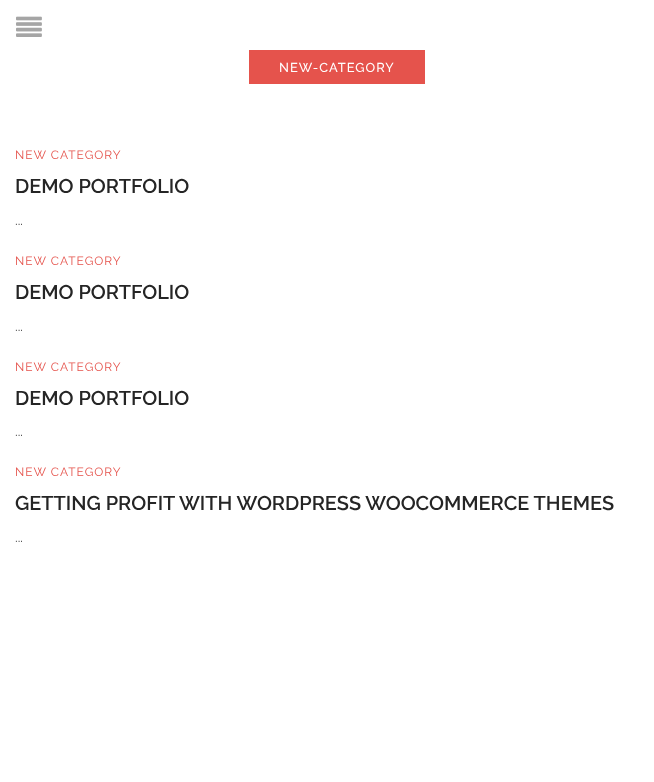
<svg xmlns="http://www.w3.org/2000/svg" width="654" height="782">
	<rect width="100%" height="100%" fill="#FFFFFF" />
	<image x="16" y="16" width="26" height="21" href="assets/img1.png" />
	<rect x="249" y="50" width="176" height="34" fill="#E5534C" />
	<text x="279" y="72" font-family="Raleway" font-size="12.9" font-weight="500" letter-spacing="1" fill="#FFFFFF">NEW-CATEGORY</text>
	<text x="15" y="159" font-family="Raleway" font-size="12" letter-spacing="1" fill="#E5534C">NEW CATEGORY</text>
	<text x="15" y="193" font-family="Raleway" font-size="19.9" font-weight="600" fill="#252525">DEMO PORTFOLIO</text>
	<text x="15" y="225" font-family="Raleway" font-size="14" fill="#333333">...</text>
	<text x="15" y="265" font-family="Raleway" font-size="12" letter-spacing="1" fill="#E5534C">NEW CATEGORY</text>
	<text x="15" y="299" font-family="Raleway" font-size="19.9" font-weight="600" fill="#252525">DEMO PORTFOLIO</text>
	<text x="15" y="331" font-family="Raleway" font-size="14" fill="#333333">...</text>
	<text x="15" y="371" font-family="Raleway" font-size="12" letter-spacing="1" fill="#E5534C">NEW CATEGORY</text>
	<text x="15" y="405" font-family="Raleway" font-size="19.9" font-weight="600" fill="#252525">DEMO PORTFOLIO</text>
	<text x="15" y="436" font-family="Raleway" font-size="14" fill="#333333">...</text>
	<text x="15" y="476" font-family="Raleway" font-size="12" letter-spacing="1" fill="#E5534C">NEW CATEGORY</text>
	<text x="15" y="510" font-family="Raleway" font-size="19.9" font-weight="600" fill="#252525">GETTING PROFIT WITH WORDPRESS WOOCOMMERCE THEMES</text>
	<text x="15" y="542" font-family="Raleway" font-size="14" fill="#333333">...</text>
</svg>
